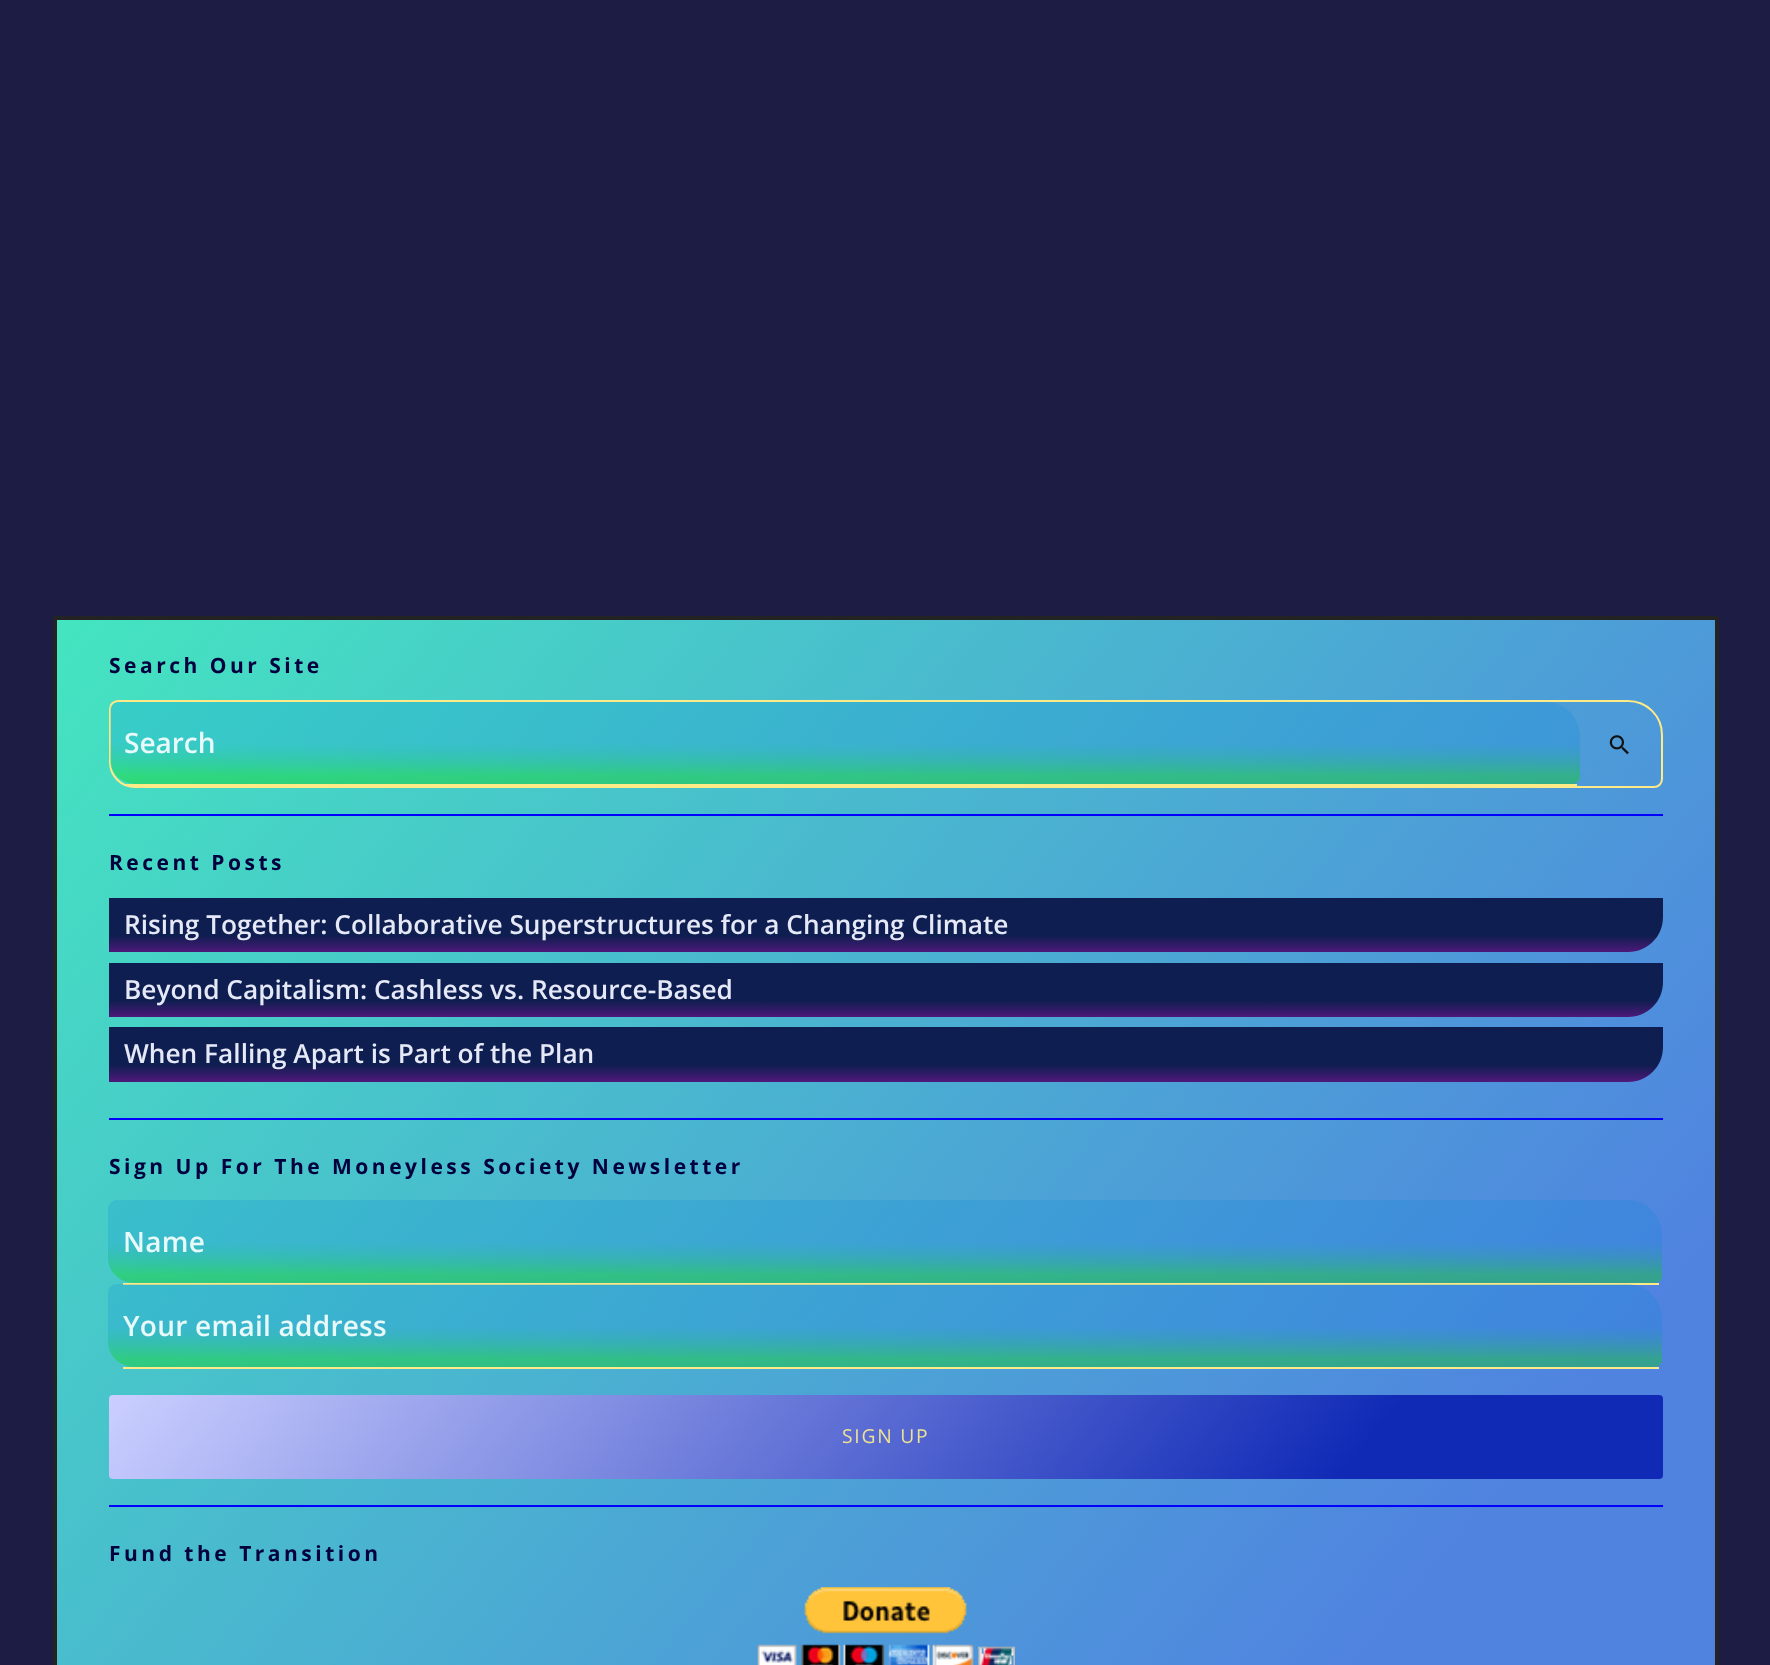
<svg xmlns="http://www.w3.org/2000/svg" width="1770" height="1665">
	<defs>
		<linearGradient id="g1" gradientUnits="userSpaceOnUse" x1="88" y1="581" x2="1683" y2="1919"><stop offset="0" stop-color="#44E5C0" /><stop offset="0.8" stop-color="#5083E0" /></linearGradient>
		<linearGradient id="g2" gradientUnits="userSpaceOnUse" x1="845" y1="702" x2="845" y2="866"><stop offset="0.25" stop-color="#0086D7" stop-opacity="0.2" /><stop offset="0.45" stop-color="#08D707" stop-opacity="0.37" /><stop offset="0.95" stop-color="#03741C" stop-opacity="0.5" /></linearGradient>
		<linearGradient id="g3" gradientUnits="userSpaceOnUse" x1="886" y1="898" x2="886" y2="1006"><stop offset="0.35" stop-color="#0F1E50" /><stop offset="0.5" stop-color="#4D197A" /><stop offset="0.95" stop-color="#2E89E7" /></linearGradient>
		<linearGradient id="g4" gradientUnits="userSpaceOnUse" x1="886" y1="963" x2="886" y2="1071"><stop offset="0.35" stop-color="#0F1E50" /><stop offset="0.5" stop-color="#4D197A" /><stop offset="0.95" stop-color="#2E89E7" /></linearGradient>
		<linearGradient id="g5" gradientUnits="userSpaceOnUse" x1="886" y1="1027" x2="886" y2="1136"><stop offset="0.35" stop-color="#0F1E50" /><stop offset="0.5" stop-color="#4D197A" /><stop offset="0.95" stop-color="#2E89E7" /></linearGradient>
		<linearGradient id="g6" gradientUnits="userSpaceOnUse" x1="886" y1="1201" x2="886" y2="1365"><stop offset="0.25" stop-color="#0086D7" stop-opacity="0.2" /><stop offset="0.45" stop-color="#08D707" stop-opacity="0.37" /><stop offset="0.95" stop-color="#03741C" stop-opacity="0.5" /></linearGradient>
		<linearGradient id="g7" gradientUnits="userSpaceOnUse" x1="886" y1="1285" x2="886" y2="1449"><stop offset="0.25" stop-color="#0086D7" stop-opacity="0.2" /><stop offset="0.45" stop-color="#08D707" stop-opacity="0.37" /><stop offset="0.95" stop-color="#03741C" stop-opacity="0.5" /></linearGradient>
		<linearGradient id="g8" gradientUnits="userSpaceOnUse" x1="409" y1="1037" x2="1362" y2="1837"><stop offset="0" stop-color="#CBCFFF" /><stop offset="0.8" stop-color="#102AB6" /></linearGradient>
	</defs>
	<rect width="100%" height="100%" fill="#1C1C44" />
	<rect x="57" y="620" width="1658" height="1045" fill="url(#g1)" />
	<rect x="55" y="618" width="1662" height="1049" fill="none" stroke="#232323" stroke-width="4" />
	<rect x="109" y="814" width="1554" height="2" fill="#0000FF" />
	<text x="109" y="673" font-family="Open Sans" font-size="21" font-weight="700" letter-spacing="3.5" fill="#00013D">Search Our Site</text>
	<path d="M118 701H1628C1647 701 1662 716 1662 735V779C1662 783.5 1658.5 787 1654 787H135C121 787 110 776 110 762V709C110 704.5 113.5 701 118 701Z" fill="none" stroke="#FFEA88" stroke-width="2" />
	<path d="M119 702H1545C1565 702 1580 717 1580 737V777C1580 781 1576 784 1572 784H136C122 784 110 773 110 760V710C110 706 114 702 119 702Z" fill="url(#g2)" />
	<rect x="124" y="784" width="1453" height="2" fill="#FFEA88" />
	<text x="124" y="753" font-family="Open Sans" font-size="28" font-weight="600" fill="#E8F9F9">Search</text>
	<image x="1609" y="735" width="20" height="20" href="assets/img1.png" />
	<rect x="109" y="1118" width="1554" height="2" fill="#0000FF" />
	<text x="109" y="870" font-family="Open Sans" font-size="21" font-weight="700" letter-spacing="3.5" fill="#00013D">Recent Posts</text>
	<path d="M109 898H1663V917C1663 936.5 1647.5 952 1628 952H109Z" fill="url(#g3)" />
	<text x="124" y="934" font-family="Open Sans" font-size="26.25" font-weight="600" fill="#E5E9F7">Rising Together: Collaborative Superstructures for a Changing Climate</text>
	<path d="M109 963H1663V982C1663 1001.5 1647.5 1017 1628 1017H109Z" fill="url(#g4)" />
	<text x="124" y="999" font-family="Open Sans" font-size="26.25" font-weight="600" fill="#E5E9F7">Beyond Capitalism: Cashless vs. Resource-Based</text>
	<path d="M109 1027H1663V1047C1663 1066.5 1647.5 1082 1628 1082H109Z" fill="url(#g5)" />
	<text x="124" y="1063" font-family="Open Sans" font-size="26.25" font-weight="600" fill="#E5E9F7">When Falling Apart is Part of the Plan</text>
	<rect x="109" y="1505" width="1554" height="2" fill="#0000FF" />
	<text x="109" y="1174" font-family="Open Sans" font-size="21" font-weight="700" letter-spacing="3.5" fill="#00013D">Sign Up For The Moneyless Society Newsletter</text>
	<path d="M117 1200H1628C1647 1200 1662 1216 1662 1236V1276C1662 1280 1659 1283 1654 1283H135C120 1283 108 1272 108 1258V1209C108 1204 112 1200 117 1200Z" fill="url(#g6)" />
	<rect x="123" y="1283" width="1536" height="2" fill="#FFEA88" />
	<text x="123" y="1252" font-family="Open Sans" font-size="28" font-weight="600" letter-spacing="0.25" fill="#E8F9F9">Name</text>
	<path d="M117 1284H1628C1647 1284 1662 1300 1662 1320V1360C1662 1364 1659 1367 1654 1367H135C120 1367 108 1356 108 1342V1293C108 1288 112 1284 117 1284Z" fill="url(#g7)" />
	<rect x="123" y="1367" width="1536" height="2" fill="#FFEA88" />
	<text x="123" y="1336" font-family="Open Sans" font-size="28" font-weight="600" letter-spacing="0.25" fill="#E8F9F9">Your email address</text>
	<rect x="109" y="1395" width="1554" height="84" rx="4" fill="url(#g8)" />
	<text x="842" y="1443" font-family="Open Sans" font-size="19.25" letter-spacing="1.75" fill="#EDE195">SIGN UP</text>
	<text x="109" y="1561" font-family="Open Sans" font-size="21" font-weight="700" letter-spacing="3.5" fill="#00013D">Fund the Transition</text>
	<image x="757" y="1587" width="258" height="78" href="assets/img2.png" />
</svg>
